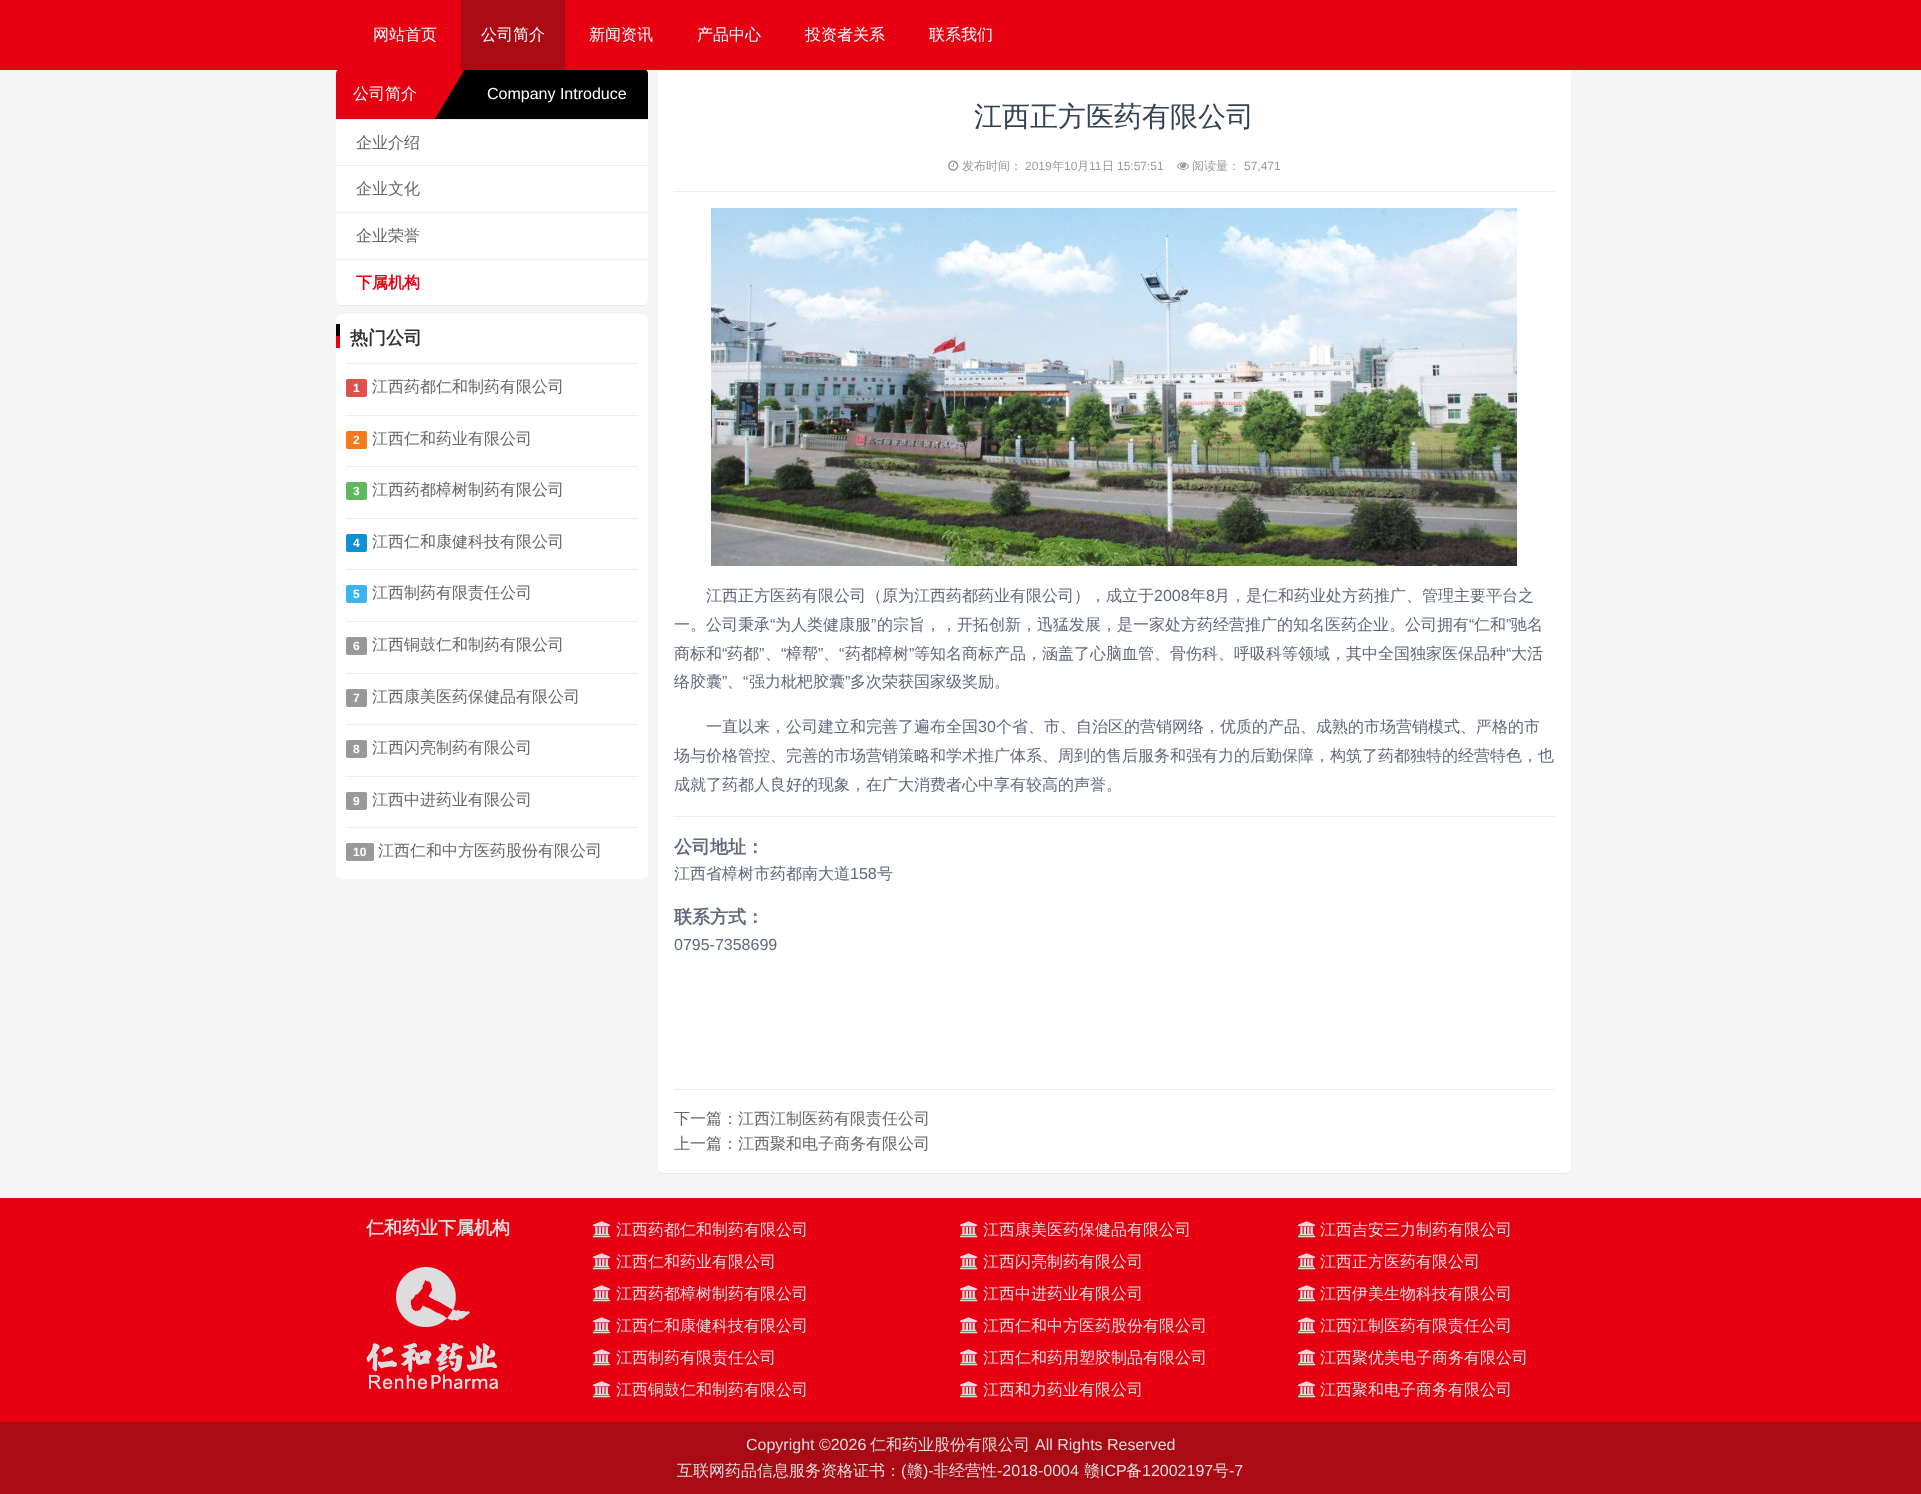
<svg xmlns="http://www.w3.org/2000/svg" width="1921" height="1494">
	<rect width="100%" height="100%" fill="#F5F5F5" />
	<rect x="336" y="120" width="312" height="186" rx="5" fill="#000000" fill-opacity="0.05" filter="blur(0.5px)" />
	<path d="M341 69H435V119H336V74C336 71 338 69 341 69Z" fill="#E60012" />
	<path d="M435 69H643C646 69 648 71 648 74V119H435Z" fill="#000000" />
	<path d="M435 69H465L435 119Z" fill="#E60012" />
	<rect x="658" y="70" width="913" height="1104" rx="5" fill="#000000" fill-opacity="0.05" filter="blur(0.5px)" />
	<rect x="658" y="69" width="913" height="1104" rx="5" fill="#FFFFFF" />
	<rect x="0" y="0" width="1921" height="70" fill="#E60012" />
	<text x="373" y="40" font-family="WenQuanYi Zen Hei" font-size="16" font-weight="500" fill="#FFFFFF">网站首页</text>
	<rect x="461" y="0" width="104" height="70" fill="#AA0A14" />
	<g font-family="WenQuanYi Zen Hei" font-size="16" font-weight="500" fill="#FFFFFF">
		<text x="481" y="40">公司简介</text>
		<text x="589" y="40">新闻资讯</text>
		<text x="697" y="40">产品中心</text>
		<text x="805" y="40">投资者关系</text>
		<text x="929" y="40">联系我们</text>
		<text x="353" y="99">公司简介</text>
	</g>
	<text x="487" y="99" font-family="Liberation Sans" font-size="16" fill="#FFFFFF">Company Introduce</text>
	<rect x="336" y="119" width="312" height="186" rx="5" fill="#FFFFFF" />
	<rect x="336" y="120" width="312" height="3" fill="#FFFFFF" />
	<rect x="336" y="119" width="312" height="1" fill="#EEEEEE" />
	<rect x="336" y="165" width="312" height="1" fill="#EEEEEE" />
	<text x="356" y="148" font-family="WenQuanYi Zen Hei" font-size="16" font-weight="500" fill="#666666">企业介绍</text>
	<rect x="336" y="212" width="312" height="1" fill="#EEEEEE" />
	<text x="356" y="194" font-family="WenQuanYi Zen Hei" font-size="16" font-weight="500" fill="#666666">企业文化</text>
	<rect x="336" y="259" width="312" height="1" fill="#EEEEEE" />
	<text x="356" y="241" font-family="WenQuanYi Zen Hei" font-size="16" font-weight="500" fill="#666666">企业荣誉</text>
	<rect x="336" y="259" width="312" height="46" rx="5" fill="#FFFFFF" />
	<rect x="339" y="259" width="307" height="1" fill="#EEEEEE" />
	<text x="356" y="288" font-family="WenQuanYi Zen Hei" font-size="16" font-weight="700" fill="#E60012">下属机构</text>
	<rect x="336" y="314" width="312" height="565" rx="5" fill="#FFFFFF" />
	<image x="336" y="324" width="4" height="24" href="assets/img1.png" />
	<text x="350" y="344" font-family="WenQuanYi Zen Hei" font-size="18" font-weight="700" fill="#333333">热门公司</text>
	<rect x="346" y="363" width="292" height="1" fill="#EEEEEE" />
	<rect x="346" y="415" width="292" height="1" fill="#EEEEEE" />
	<rect x="346" y="379" width="21" height="18" rx="2" fill="#DD514C" />
	<text x="353" y="392" font-family="Liberation Sans" font-size="12" font-weight="700" fill="#FFFFFF">1</text>
	<text x="372" y="392" font-family="WenQuanYi Zen Hei" font-size="16" font-weight="500" fill="#666666">江西药都仁和制药有限公司</text>
	<rect x="346" y="466" width="292" height="1" fill="#EEEEEE" />
	<rect x="346" y="431" width="21" height="18" rx="2" fill="#F37B1D" />
	<text x="353" y="444" font-family="Liberation Sans" font-size="12" font-weight="700" fill="#FFFFFF">2</text>
	<text x="372" y="444" font-family="WenQuanYi Zen Hei" font-size="16" font-weight="500" fill="#666666">江西仁和药业有限公司</text>
	<rect x="346" y="518" width="292" height="1" fill="#EEEEEE" />
	<rect x="346" y="482" width="21" height="18" rx="2" fill="#5EB95E" />
	<text x="353" y="495" font-family="Liberation Sans" font-size="12" font-weight="700" fill="#FFFFFF">3</text>
	<text x="372" y="495" font-family="WenQuanYi Zen Hei" font-size="16" font-weight="500" fill="#666666">江西药都樟树制药有限公司</text>
	<rect x="346" y="569" width="292" height="1" fill="#EEEEEE" />
	<rect x="346" y="534" width="21" height="18" rx="2" fill="#0E90D2" />
	<text x="353" y="547" font-family="Liberation Sans" font-size="12" font-weight="700" fill="#FFFFFF">4</text>
	<text x="372" y="547" font-family="WenQuanYi Zen Hei" font-size="16" font-weight="500" fill="#666666">江西仁和康健科技有限公司</text>
	<rect x="346" y="621" width="292" height="1" fill="#EEEEEE" />
	<rect x="346" y="585" width="21" height="18" rx="2" fill="#3BB4F2" />
	<text x="353" y="598" font-family="Liberation Sans" font-size="12" font-weight="700" fill="#FFFFFF">5</text>
	<text x="372" y="598" font-family="WenQuanYi Zen Hei" font-size="16" font-weight="500" fill="#666666">江西制药有限责任公司</text>
	<rect x="346" y="673" width="292" height="1" fill="#EEEEEE" />
	<rect x="346" y="637" width="21" height="18" rx="2" fill="#999999" />
	<text x="353" y="650" font-family="Liberation Sans" font-size="12" font-weight="700" fill="#FFFFFF">6</text>
	<text x="372" y="650" font-family="WenQuanYi Zen Hei" font-size="16" font-weight="500" fill="#666666">江西铜鼓仁和制药有限公司</text>
	<rect x="346" y="724" width="292" height="1" fill="#EEEEEE" />
	<rect x="346" y="689" width="21" height="18" rx="2" fill="#999999" />
	<text x="353" y="702" font-family="Liberation Sans" font-size="12" font-weight="700" fill="#FFFFFF">7</text>
	<text x="372" y="702" font-family="WenQuanYi Zen Hei" font-size="16" font-weight="500" fill="#666666">江西康美医药保健品有限公司</text>
	<rect x="346" y="776" width="292" height="1" fill="#EEEEEE" />
	<rect x="346" y="740" width="21" height="18" rx="2" fill="#999999" />
	<text x="353" y="753" font-family="Liberation Sans" font-size="12" font-weight="700" fill="#FFFFFF">8</text>
	<text x="372" y="753" font-family="WenQuanYi Zen Hei" font-size="16" font-weight="500" fill="#666666">江西闪亮制药有限公司</text>
	<rect x="346" y="827" width="292" height="1" fill="#EEEEEE" />
	<rect x="346" y="792" width="21" height="18" rx="2" fill="#999999" />
	<text x="353" y="805" font-family="Liberation Sans" font-size="12" font-weight="700" fill="#FFFFFF">9</text>
	<text x="372" y="805" font-family="WenQuanYi Zen Hei" font-size="16" font-weight="500" fill="#666666">江西中进药业有限公司</text>
	<rect x="346" y="827" width="292" height="52" rx="5" fill="#FFFFFF" />
	<rect x="349" y="827" width="287" height="1" fill="#EEEEEE" />
	<rect x="346" y="843" width="28" height="18" rx="2" fill="#999999" />
	<text x="353" y="856" font-family="Liberation Sans" font-size="12" font-weight="700" fill="#FFFFFF">10</text>
	<text x="378" y="856" font-family="WenQuanYi Zen Hei" font-size="16" font-weight="500" fill="#666666">江西仁和中方医药股份有限公司</text>
	<text x="974" y="126" font-family="WenQuanYi Zen Hei" font-size="28" font-weight="500" fill="#334356">江西正方医药有限公司</text>
	<image x="948" y="160" width="11" height="11" href="assets/img2.png" />
	<text x="962" y="170" font-family="WenQuanYi Zen Hei" font-size="12" font-weight="500" fill="#999999">发布时间：</text>
	<text x="1025" y="170" font-family="Liberation Sans" font-size="12" fill="#999999">2019</text>
	<text x="1052" y="170" font-family="WenQuanYi Zen Hei" font-size="12" font-weight="500" fill="#999999">年</text>
	<text x="1064" y="170" font-family="Liberation Sans" font-size="12" fill="#999999">10</text>
	<text x="1077" y="170" font-family="WenQuanYi Zen Hei" font-size="12" font-weight="500" fill="#999999">月</text>
	<text x="1089" y="170" font-family="Liberation Sans" font-size="12" fill="#999999">11</text>
	<text x="1102" y="170" font-family="WenQuanYi Zen Hei" font-size="12" font-weight="500" fill="#999999">日</text>
	<text x="1117" y="170" font-family="Liberation Sans" font-size="12" fill="#999999">15:57:51</text>
	<image x="1177" y="162" width="12" height="8" href="assets/img3.png" />
	<text x="1192" y="170" font-family="WenQuanYi Zen Hei" font-size="12" font-weight="500" fill="#999999">阅读量：</text>
	<text x="1244" y="170" font-family="Liberation Sans" font-size="12" fill="#999999">57,471</text>
	<rect x="674" y="191" width="881" height="1" fill="#EEEEEE" />
	<image x="711" y="208" width="806" height="358" href="assets/img4.png" />
	<text x="706" y="601" font-family="WenQuanYi Zen Hei" font-size="16" font-weight="500" fill="#61687C">江西正方医药有限公司（原为江西药都药业有限公司），成立于</text>
	<text x="1154" y="601" font-family="Liberation Sans" font-size="16" fill="#61687C">2008</text>
	<text x="1190" y="601" font-family="WenQuanYi Zen Hei" font-size="16" font-weight="500" fill="#61687C">年</text>
	<text x="1206" y="601" font-family="Liberation Sans" font-size="16" fill="#61687C">8</text>
	<g font-family="WenQuanYi Zen Hei" font-size="16" font-weight="500" fill="#61687C">
		<text x="1214" y="601">月，是仁和药业处方药推广、管理主要平台之</text>
		<text x="674" y="630">一。公司秉承</text>
	</g>
	<text x="770" y="630" font-family="Liberation Sans" font-size="16" fill="#61687C">“</text>
	<text x="775" y="630" font-family="WenQuanYi Zen Hei" font-size="16" font-weight="500" fill="#61687C">为人类健康服</text>
	<text x="871" y="630" font-family="Liberation Sans" font-size="16" fill="#61687C">”</text>
	<text x="877" y="630" font-family="WenQuanYi Zen Hei" font-size="16" font-weight="500" fill="#61687C">的宗旨，，开拓创新，迅猛发展，是一家处方药经营推广的知名医药企业。公司拥有</text>
	<text x="1469" y="630" font-family="Liberation Sans" font-size="16" fill="#61687C">“</text>
	<text x="1474" y="630" font-family="WenQuanYi Zen Hei" font-size="16" font-weight="500" fill="#61687C">仁和</text>
	<text x="1506" y="630" font-family="Liberation Sans" font-size="16" fill="#61687C">”</text>
	<g font-family="WenQuanYi Zen Hei" font-size="16" font-weight="500" fill="#61687C">
		<text x="1511" y="630">驰名</text>
		<text x="674" y="659">商标和</text>
	</g>
	<text x="722" y="659" font-family="Liberation Sans" font-size="16" fill="#61687C">“</text>
	<text x="727" y="659" font-family="WenQuanYi Zen Hei" font-size="16" font-weight="500" fill="#61687C">药都</text>
	<g font-family="Liberation Sans" font-size="16" fill="#61687C">
		<text x="759" y="659">”</text>
		<text x="781" y="659">“</text>
	</g>
	<text x="786" y="659" font-family="WenQuanYi Zen Hei" font-size="16" font-weight="500" fill="#61687C">樟帮</text>
	<g font-family="Liberation Sans" font-size="16" fill="#61687C">
		<text x="818" y="659">”</text>
		<text x="839" y="659">“</text>
	</g>
	<text x="845" y="659" font-family="WenQuanYi Zen Hei" font-size="16" font-weight="500" fill="#61687C">药都樟树</text>
	<text x="909" y="659" font-family="Liberation Sans" font-size="16" fill="#61687C">”</text>
	<text x="914" y="659" font-family="WenQuanYi Zen Hei" font-size="16" font-weight="500" fill="#61687C">等知名商标产品，涵盖了心脑血管、骨伤科、呼吸科等领域，其中全国独家医保品种</text>
	<text x="1506" y="659" font-family="Liberation Sans" font-size="16" fill="#61687C">“</text>
	<g font-family="WenQuanYi Zen Hei" font-size="16" font-weight="500" fill="#61687C">
		<text x="1511" y="659">大活</text>
		<text x="765" y="659">、</text>
		<text x="823" y="659">、</text>
		<text x="674" y="687">络胶囊</text>
	</g>
	<g font-family="Liberation Sans" font-size="16" fill="#61687C">
		<text x="722" y="687">”</text>
		<text x="743" y="687">“</text>
	</g>
	<text x="749" y="687" font-family="WenQuanYi Zen Hei" font-size="16" font-weight="500" fill="#61687C">强力枇杷胶囊</text>
	<text x="845" y="687" font-family="Liberation Sans" font-size="16" fill="#61687C">”</text>
	<g font-family="WenQuanYi Zen Hei" font-size="16" font-weight="500" fill="#61687C">
		<text x="850" y="687">多次荣获国家级奖励。</text>
		<text x="727" y="687">、</text>
		<text x="706" y="732">一直以来，公司建立和完善了遍布全国</text>
	</g>
	<text x="978" y="732" font-family="Liberation Sans" font-size="16" fill="#61687C">30</text>
	<g font-family="WenQuanYi Zen Hei" font-size="16" font-weight="500" fill="#61687C">
		<text x="996" y="732">个省、市、自治区的营销网络，优质的产品、成熟的市场营销模式、严格的市</text>
		<text x="674" y="761">场与价格管控、完善的市场营销策略和学术推广体系、周到的售后服务和强有力的后勤保障，构筑了药都独特的经营特色，也</text>
		<text x="674" y="790">成就了药都人良好的现象，在广大消费者心中享有较高的声誉。</text>
	</g>
	<rect x="674" y="816" width="881" height="1" fill="#EEEEEE" />
	<text x="674" y="853" font-family="WenQuanYi Zen Hei" font-size="18" font-weight="700" fill="#61687C">公司地址：</text>
	<text x="674" y="879" font-family="WenQuanYi Zen Hei" font-size="16" font-weight="500" fill="#61687C">江西省樟树市药都南大道</text>
	<text x="850" y="879" font-family="Liberation Sans" font-size="16" fill="#61687C">158</text>
	<text x="877" y="879" font-family="WenQuanYi Zen Hei" font-size="16" font-weight="500" fill="#61687C">号</text>
	<text x="674" y="923" font-family="WenQuanYi Zen Hei" font-size="18" font-weight="700" fill="#61687C">联系方式：</text>
	<text x="674" y="950" font-family="Liberation Sans" font-size="16" fill="#61687C">0795-7358699</text>
	<rect x="674" y="1089" width="881" height="1" fill="#EEEEEE" />
	<g font-family="WenQuanYi Zen Hei" font-size="16" font-weight="500" fill="#666666">
		<text x="674" y="1124">下一篇：江西江制医药有限责任公司</text>
		<text x="674" y="1149">上一篇：江西聚和电子商务有限公司</text>
	</g>
	<rect x="0" y="1198" width="1921" height="224" fill="#E60012" />
	<text x="366" y="1234" font-family="WenQuanYi Zen Hei" font-size="18" font-weight="700" fill="#DDDDDD">仁和药业下属机构</text>
	<image x="366" y="1267" width="132" height="122" href="assets/img5.png" />
	<image x="593" y="1221" width="18" height="17" href="assets/img6.png" />
	<text x="616" y="1235" font-family="WenQuanYi Zen Hei" font-size="16" font-weight="500" fill="#DDDDDD">江西药都仁和制药有限公司</text>
	<image x="593" y="1253" width="18" height="17" href="assets/img6.png" />
	<text x="616" y="1267" font-family="WenQuanYi Zen Hei" font-size="16" font-weight="500" fill="#DDDDDD">江西仁和药业有限公司</text>
	<image x="593" y="1285" width="18" height="17" href="assets/img6.png" />
	<text x="616" y="1299" font-family="WenQuanYi Zen Hei" font-size="16" font-weight="500" fill="#DDDDDD">江西药都樟树制药有限公司</text>
	<image x="593" y="1317" width="18" height="17" href="assets/img6.png" />
	<text x="616" y="1331" font-family="WenQuanYi Zen Hei" font-size="16" font-weight="500" fill="#DDDDDD">江西仁和康健科技有限公司</text>
	<image x="593" y="1349" width="18" height="17" href="assets/img6.png" />
	<text x="616" y="1363" font-family="WenQuanYi Zen Hei" font-size="16" font-weight="500" fill="#DDDDDD">江西制药有限责任公司</text>
	<image x="593" y="1381" width="18" height="17" href="assets/img6.png" />
	<text x="616" y="1395" font-family="WenQuanYi Zen Hei" font-size="16" font-weight="500" fill="#DDDDDD">江西铜鼓仁和制药有限公司</text>
	<image x="960" y="1221" width="18" height="17" href="assets/img6.png" />
	<text x="983" y="1235" font-family="WenQuanYi Zen Hei" font-size="16" font-weight="500" fill="#DDDDDD">江西康美医药保健品有限公司</text>
	<image x="960" y="1253" width="18" height="17" href="assets/img6.png" />
	<text x="983" y="1267" font-family="WenQuanYi Zen Hei" font-size="16" font-weight="500" fill="#DDDDDD">江西闪亮制药有限公司</text>
	<image x="960" y="1285" width="18" height="17" href="assets/img6.png" />
	<text x="983" y="1299" font-family="WenQuanYi Zen Hei" font-size="16" font-weight="500" fill="#DDDDDD">江西中进药业有限公司</text>
	<image x="960" y="1317" width="18" height="17" href="assets/img6.png" />
	<text x="983" y="1331" font-family="WenQuanYi Zen Hei" font-size="16" font-weight="500" fill="#DDDDDD">江西仁和中方医药股份有限公司</text>
	<image x="960" y="1349" width="18" height="17" href="assets/img6.png" />
	<text x="983" y="1363" font-family="WenQuanYi Zen Hei" font-size="16" font-weight="500" fill="#DDDDDD">江西仁和药用塑胶制品有限公司</text>
	<image x="960" y="1381" width="18" height="17" href="assets/img6.png" />
	<text x="983" y="1395" font-family="WenQuanYi Zen Hei" font-size="16" font-weight="500" fill="#DDDDDD">江西和力药业有限公司</text>
	<image x="1298" y="1221" width="18" height="17" href="assets/img6.png" />
	<text x="1320" y="1235" font-family="WenQuanYi Zen Hei" font-size="16" font-weight="500" fill="#DDDDDD">江西吉安三力制药有限公司</text>
	<image x="1298" y="1253" width="18" height="17" href="assets/img6.png" />
	<text x="1320" y="1267" font-family="WenQuanYi Zen Hei" font-size="16" font-weight="500" fill="#DDDDDD">江西正方医药有限公司</text>
	<image x="1298" y="1285" width="18" height="17" href="assets/img6.png" />
	<text x="1320" y="1299" font-family="WenQuanYi Zen Hei" font-size="16" font-weight="500" fill="#DDDDDD">江西伊美生物科技有限公司</text>
	<image x="1298" y="1317" width="18" height="17" href="assets/img6.png" />
	<text x="1320" y="1331" font-family="WenQuanYi Zen Hei" font-size="16" font-weight="500" fill="#DDDDDD">江西江制医药有限责任公司</text>
	<image x="1298" y="1349" width="18" height="17" href="assets/img6.png" />
	<text x="1320" y="1363" font-family="WenQuanYi Zen Hei" font-size="16" font-weight="500" fill="#DDDDDD">江西聚优美电子商务有限公司</text>
	<image x="1298" y="1381" width="18" height="17" href="assets/img6.png" />
	<text x="1320" y="1395" font-family="WenQuanYi Zen Hei" font-size="16" font-weight="500" fill="#DDDDDD">江西聚和电子商务有限公司</text>
	<rect x="0" y="1422" width="1921" height="72" fill="#AA0A14" />
	<text x="746" y="1450" font-family="Liberation Sans" font-size="16" fill="#DDDDDD">Copyright ©2026</text>
	<text x="870" y="1450" font-family="WenQuanYi Zen Hei" font-size="16" font-weight="500" fill="#DDDDDD">仁和药业股份有限公司</text>
	<text x="1035" y="1450" font-family="Liberation Sans" font-size="16" fill="#DDDDDD">All Rights Reserved</text>
	<text x="677" y="1476" font-family="WenQuanYi Zen Hei" font-size="16" font-weight="500" fill="#DDDDDD">互联网药品信息服务资格证书：</text>
	<text x="901" y="1476" font-family="Liberation Sans" font-size="16" fill="#DDDDDD">(</text>
	<text x="907" y="1476" font-family="WenQuanYi Zen Hei" font-size="16" font-weight="500" fill="#DDDDDD">赣</text>
	<text x="923" y="1476" font-family="Liberation Sans" font-size="16" fill="#DDDDDD">)-</text>
	<text x="933" y="1476" font-family="WenQuanYi Zen Hei" font-size="16" font-weight="500" fill="#DDDDDD">非经营性</text>
	<text x="997" y="1476" font-family="Liberation Sans" font-size="16" fill="#DDDDDD">-2018-0004</text>
	<text x="1084" y="1476" font-family="WenQuanYi Zen Hei" font-size="16" font-weight="500" fill="#DDDDDD">赣</text>
	<text x="1100" y="1476" font-family="Liberation Sans" font-size="16" fill="#DDDDDD">ICP</text>
	<text x="1126" y="1476" font-family="WenQuanYi Zen Hei" font-size="16" font-weight="500" fill="#DDDDDD">备</text>
	<text x="1142" y="1476" font-family="Liberation Sans" font-size="16" fill="#DDDDDD">12002197</text>
	<text x="1213" y="1476" font-family="WenQuanYi Zen Hei" font-size="16" font-weight="500" fill="#DDDDDD">号</text>
	<text x="1229" y="1476" font-family="Liberation Sans" font-size="16" fill="#DDDDDD">-7</text>
</svg>
